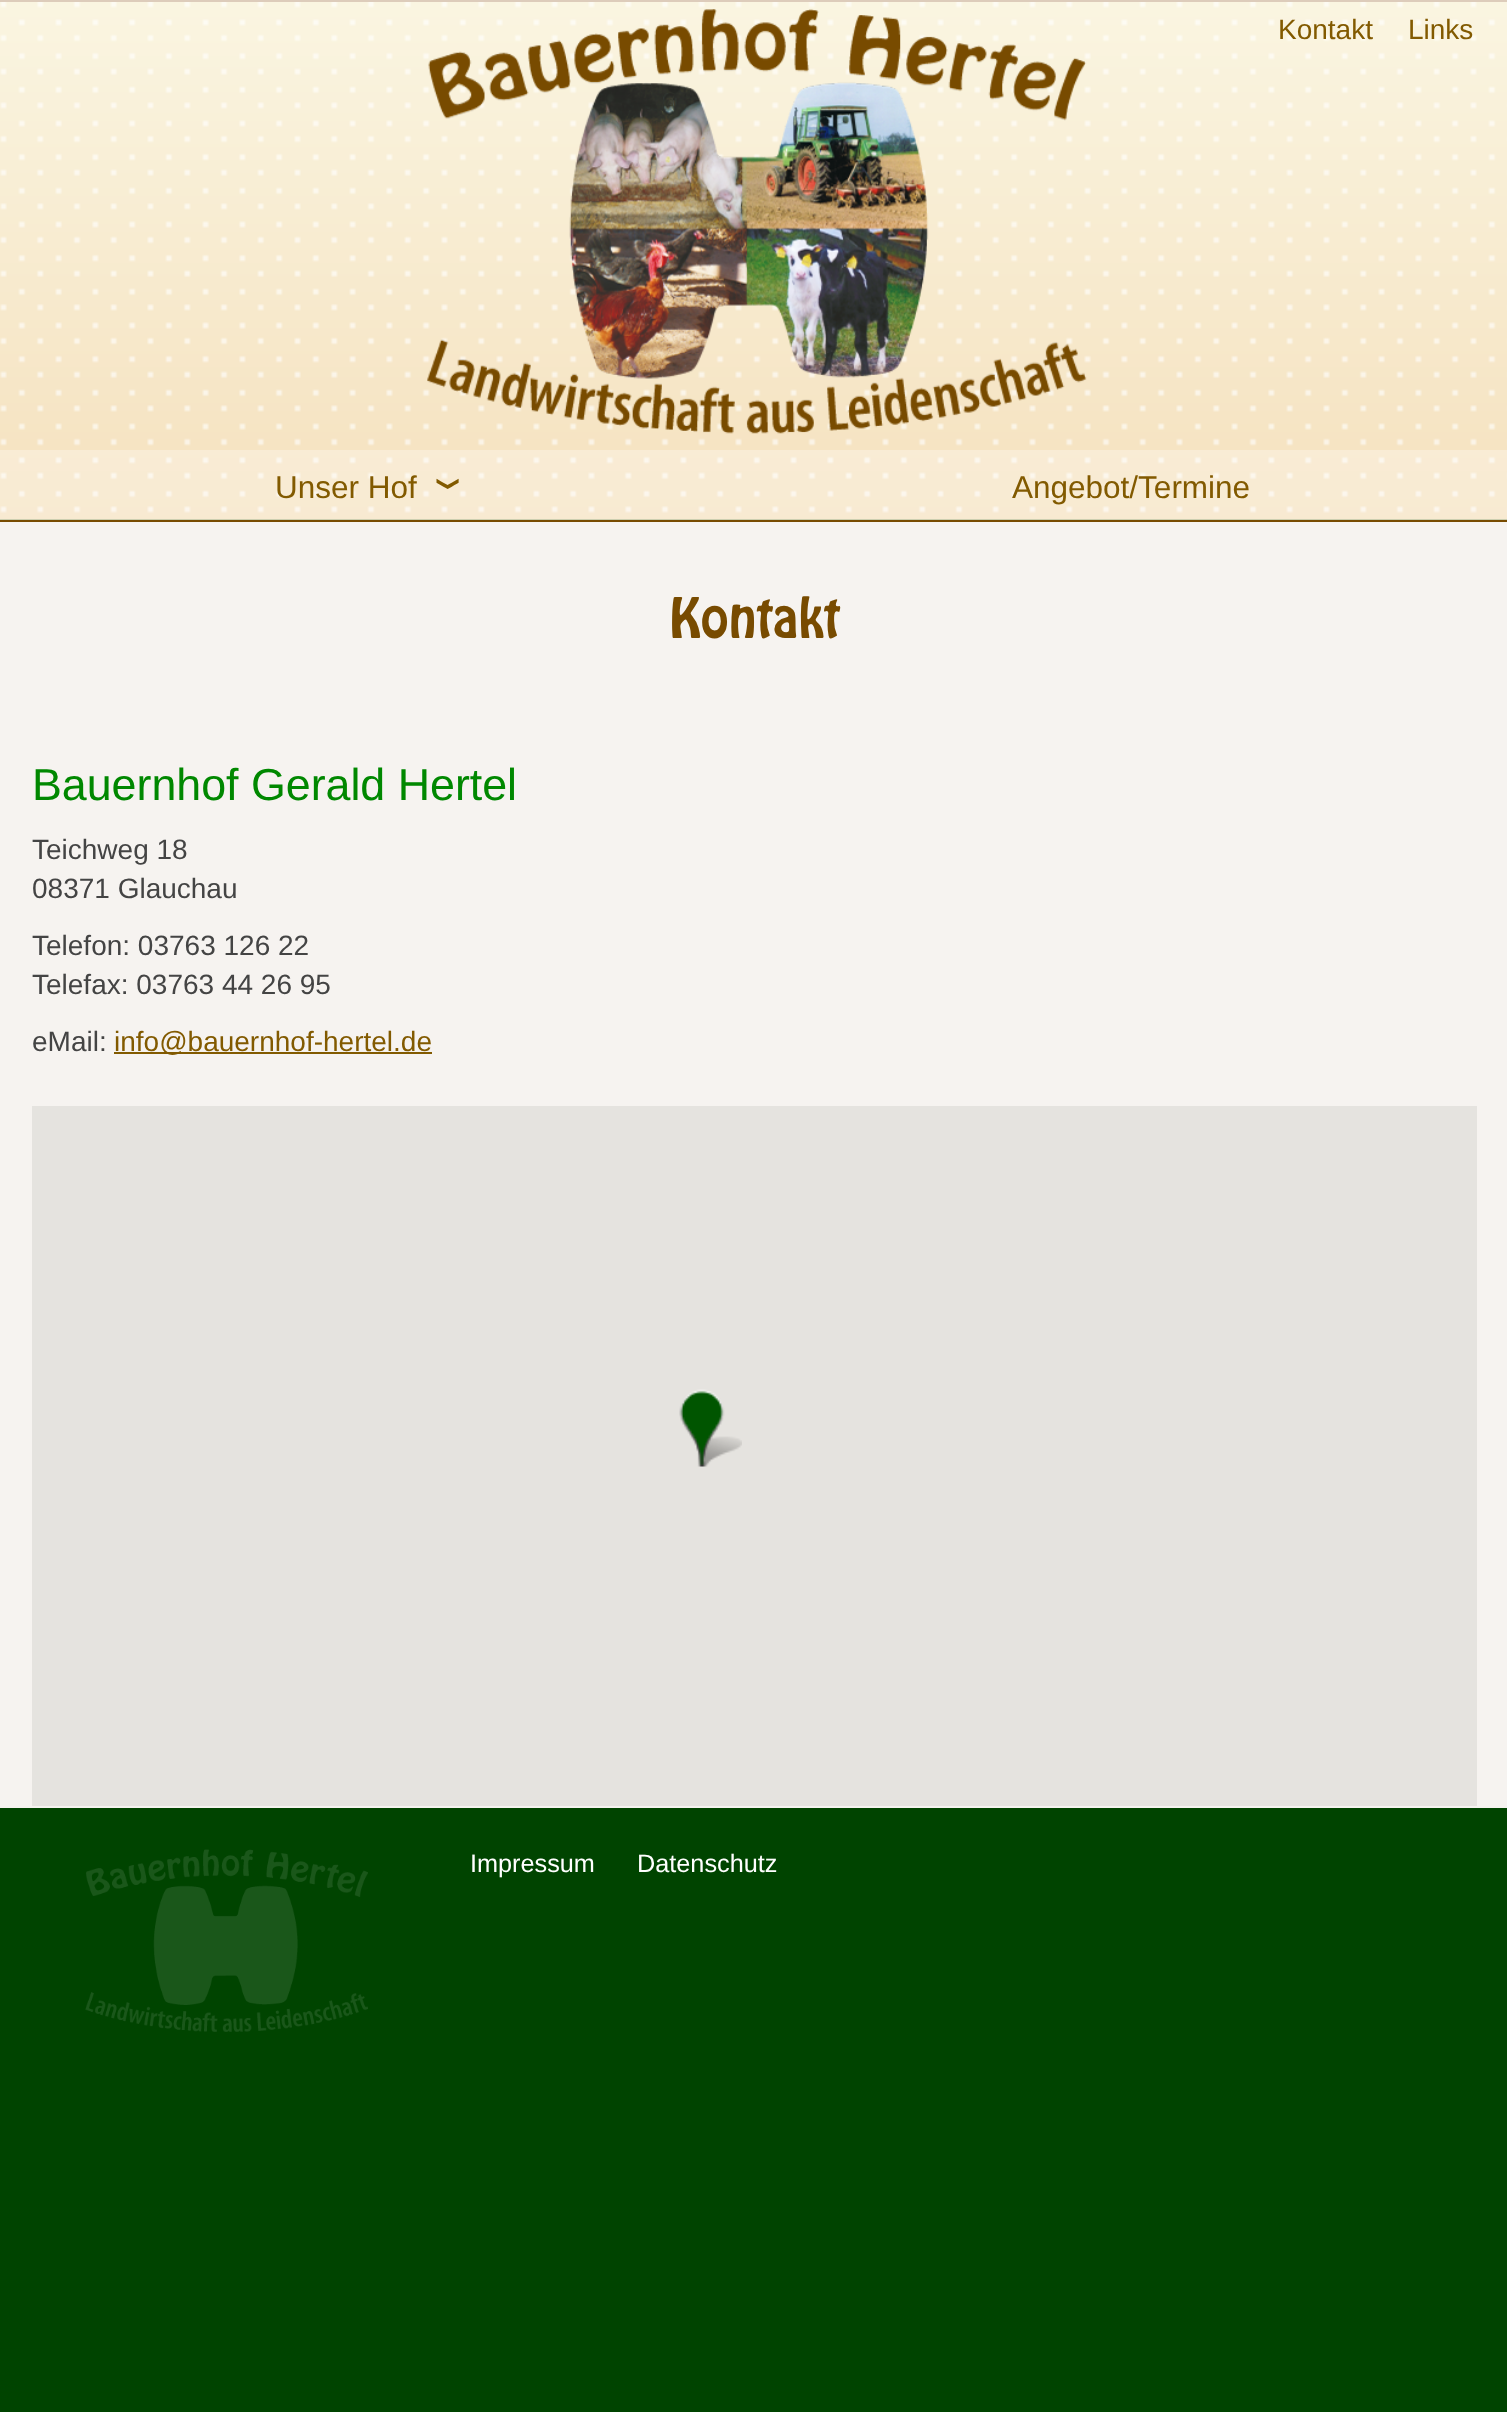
<svg xmlns="http://www.w3.org/2000/svg" width="1507" height="2412">
	<rect width="100%" height="100%" fill="#004400" />
	<image x="0" y="2" width="1507" height="518" href="assets/img1.png" />
	<rect x="0" y="0" width="1507" height="2" fill="#DDCCBB" />
	<rect x="0" y="520" width="1507" height="2" fill="#784B00" />
	<image x="427" y="9" width="660" height="425" href="assets/img2.png" />
	<g font-family="Liberation Sans" font-size="28" fill="#825A00">
		<text x="1278" y="39">Kontakt</text>
		<text x="1408" y="39">Links</text>
	</g>
	<rect x="0" y="450" width="754" height="70" fill="#FFFFFF" fill-opacity="0.3" />
	<text x="275" y="498" font-family="Liberation Sans" font-size="31.5" fill="#825A00">Unser Hof</text>
	<text x="430" y="498" font-family="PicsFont" font-size="63" fill="#825A00">2</text>
	<rect x="754" y="450" width="753" height="70" fill="#FFFFFF" fill-opacity="0.3" />
	<text x="1012" y="498" font-family="Liberation Sans" font-size="31.5" fill="#825A00">Angebot/Termine</text>
	<rect x="0" y="522" width="1507" height="1286" fill="#F6F3F0" />
	<text x="669" y="638" font-family="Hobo" font-size="61.5" fill="#784B00">Kontakt</text>
	<text x="32" y="800" font-family="Liberation Sans" font-size="44.75" fill="#008800">Bauernhof Gerald Hertel</text>
	<g font-family="Liberation Sans" font-size="28" fill="#444444">
		<text x="32" y="859">Teichweg 18</text>
		<text x="32" y="898">08371 Glauchau</text>
		<text x="32" y="955">Telefon: 03763 126 22</text>
		<text x="32" y="994">Telefax: 03763 44 26 95</text>
		<text x="32" y="1051">eMail:</text>
	</g>
	<rect x="114" y="1052" width="318" height="2" fill="#825A00" />
	<text x="114" y="1051" font-family="Liberation Sans" font-size="28" fill="#825A00">info@bauernhof-hertel.de</text>
	<rect x="32" y="1106" width="1445" height="700" fill="#E5E3DF" />
	<image x="679" y="1389" width="63" height="78" href="assets/img3.png" />
	<image x="85" y="1849" width="283" height="183" href="assets/img4.png" />
	<g font-family="Liberation Sans" font-size="25.25" fill="#FFFFFF">
		<text x="470" y="1872">Impressum</text>
		<text x="637" y="1872">Datenschutz</text>
	</g>
</svg>
